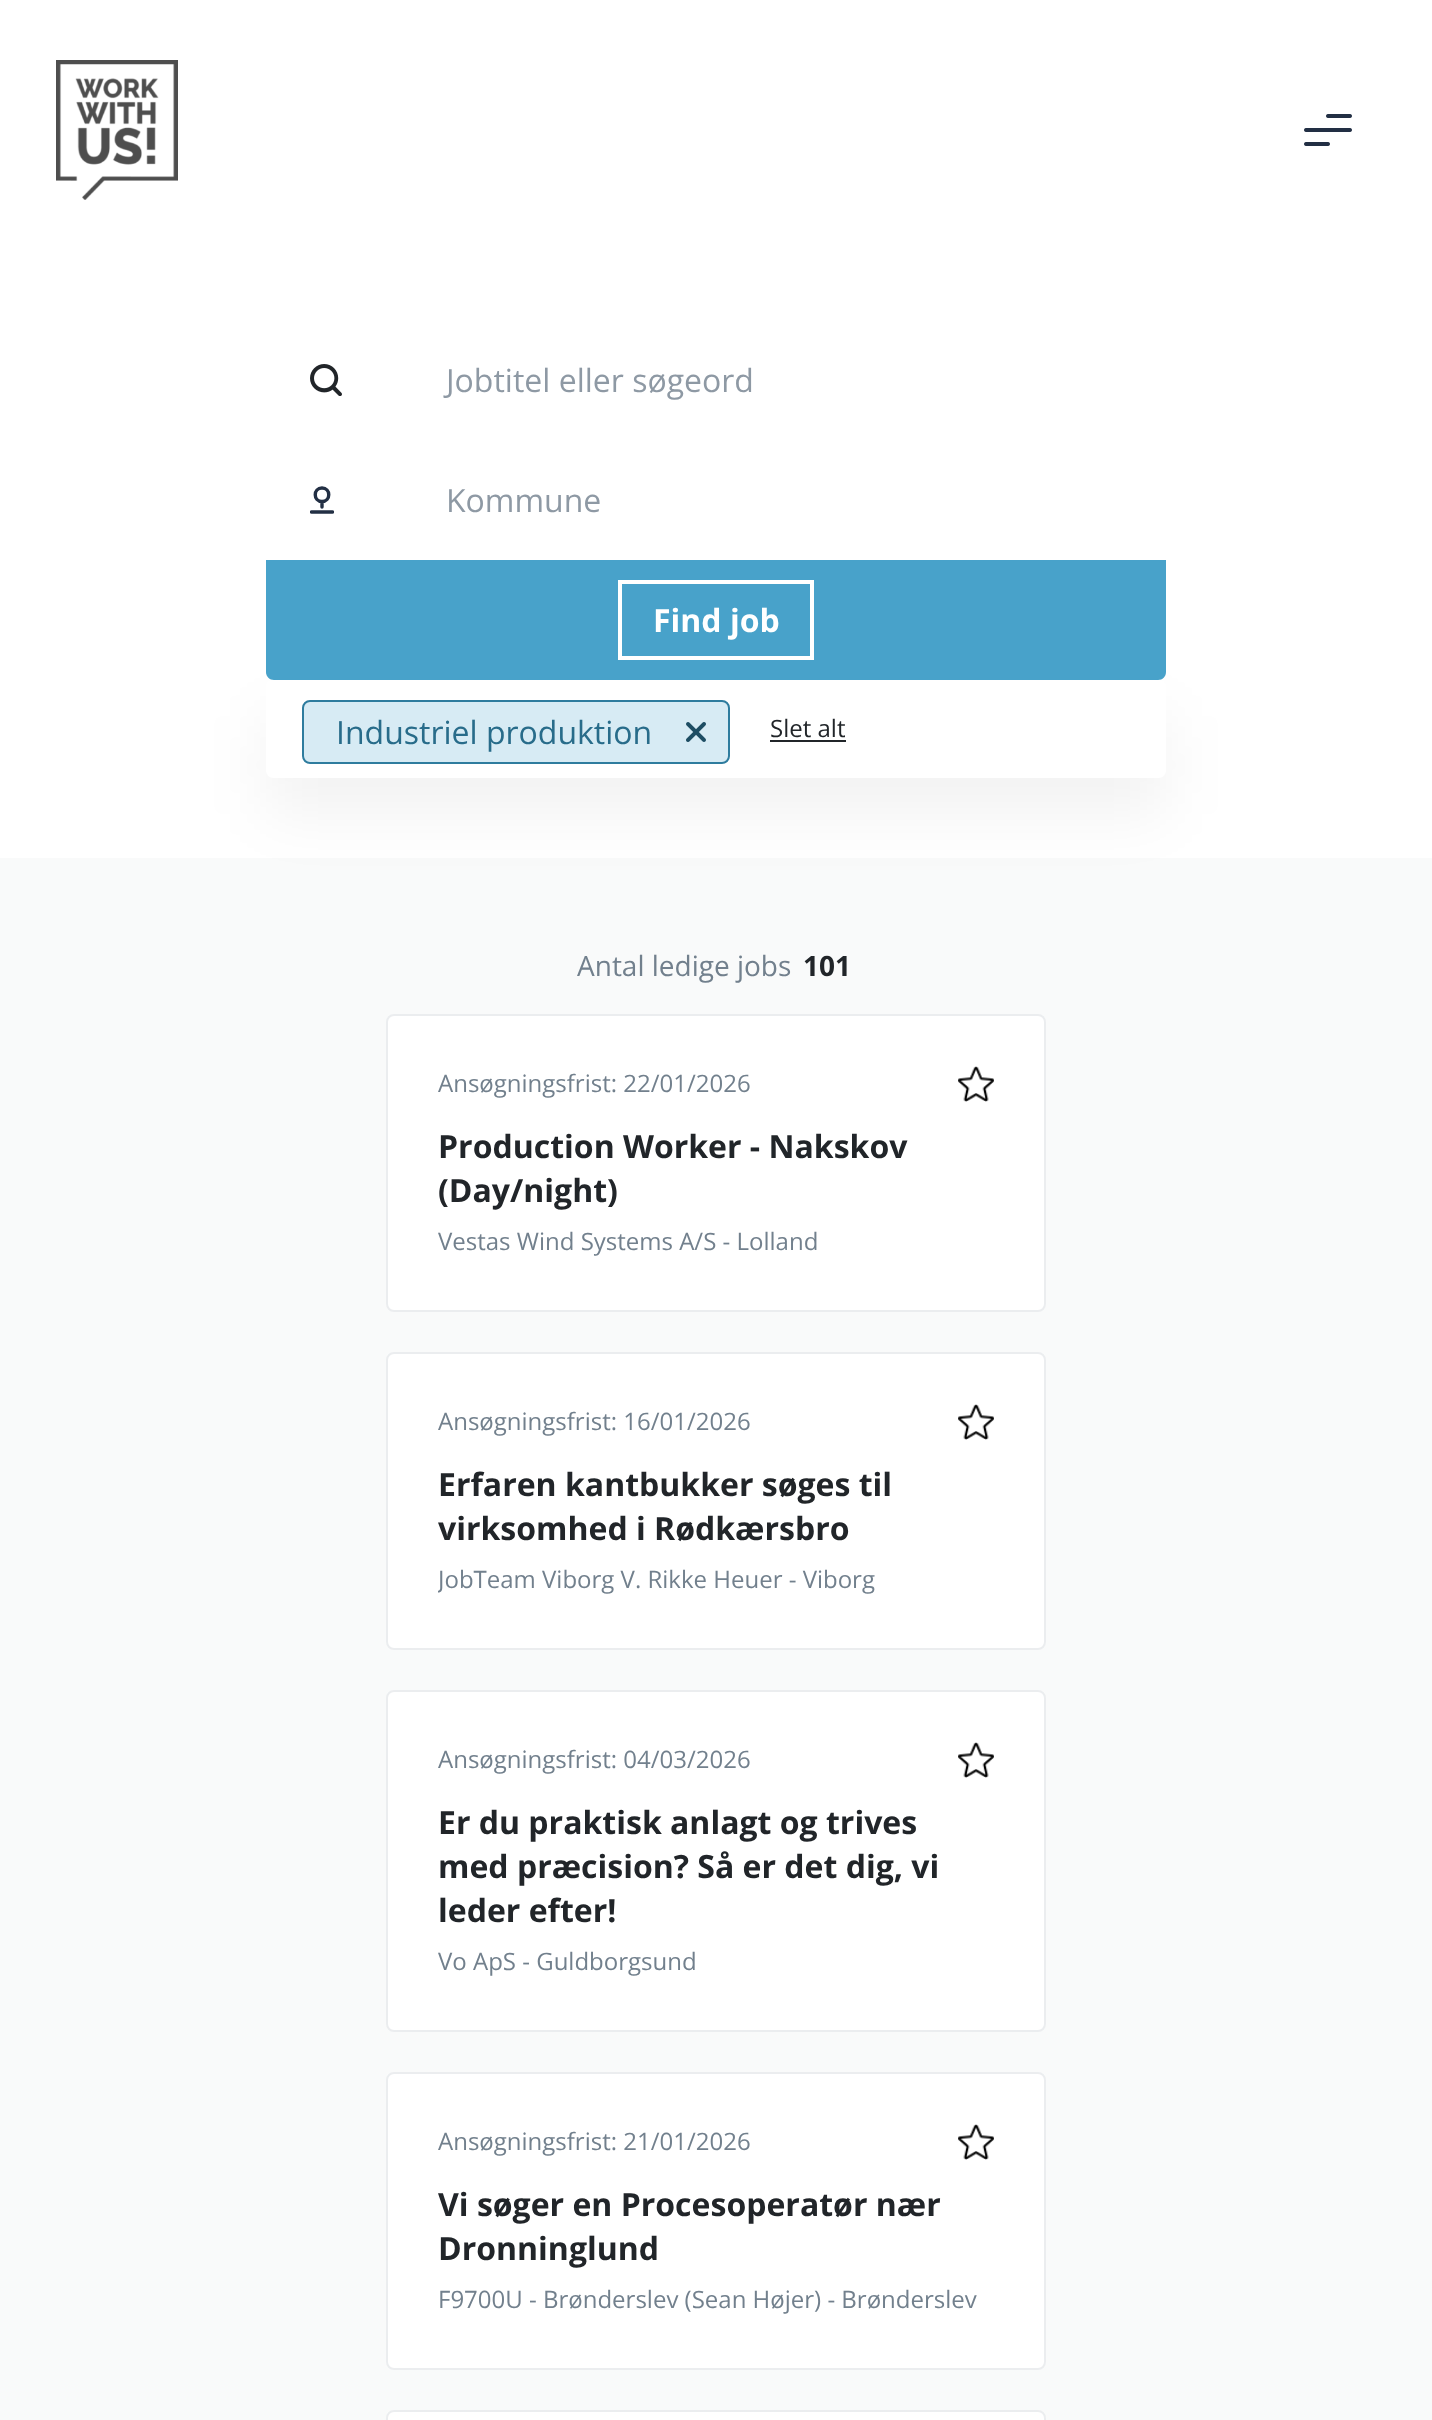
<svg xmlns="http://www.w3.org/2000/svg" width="1432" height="2420">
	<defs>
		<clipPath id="clip1"><rect x="310" y="486" width="24" height="28" /></clipPath>
		<clipPath id="clip2"><path d="M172 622H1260V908H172ZM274 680H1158C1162.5 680 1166 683.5 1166 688V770C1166 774.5 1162.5 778 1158 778H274C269.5 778 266 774.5 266 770V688C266 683.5 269.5 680 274 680Z" clip-rule="evenodd" /></clipPath>
		<clipPath id="clip3"><rect x="438" y="1562" width="556" height="36" /></clipPath>
	</defs>
	<rect width="100%" height="100%" fill="#FFFFFF" />
	<image x="56" y="60" width="122" height="140" href="assets/img1.png" />
	<image x="1304" y="114" width="48" height="32" href="assets/img2.png" />
	<image x="310" y="364" width="32" height="32" href="assets/img3.png" />
	<text x="446" y="392" font-family="Open Sans" font-size="32" fill="#8E99A4">Jobtitel eller søgeord</text>
	<g clip-path="url(#clip1)">
		<path d="M311.5 512H332.5" fill="none" stroke="#222F44" stroke-width="3.4" stroke-linecap="round" stroke-linejoin="round" />
	</g>
	<path d="M322 507V501.5M322 501.5C331 501.5 331 488 322 488C313 488 313 501.5 322 501.5Z" fill="none" stroke="#222F44" stroke-width="3.4" stroke-linecap="round" stroke-linejoin="round" />
	<text x="446" y="512" font-family="Open Sans" font-size="32" fill="#8E99A4">Kommune</text>
	<rect x="0" y="858" width="1432" height="1562" fill="#F9FAFA" />
	<g clip-path="url(#clip2)">
		<rect x="266" y="716" width="900" height="98" rx="8" fill="#000000" fill-opacity="0.05" filter="blur(31px)" />
	</g>
	<path d="M266 560H1166V672C1166 676.5 1162.5 680 1158 680H274C269.5 680 266 676.5 266 672Z" fill="#48A2CA" />
	<rect x="620" y="582" width="192" height="76" fill="none" stroke="#FFFFFF" stroke-width="4" />
	<text x="653" y="632" font-family="Open Sans" font-size="32" font-weight="700" fill="#FFFFFF">Find job</text>
	<rect x="303" y="701" width="426" height="62" rx="7" fill="#D7EBF4" stroke="#2E7C9E" stroke-width="2" />
	<text x="336" y="744" font-family="Open Sans" font-size="32" fill="#286C8A">Industriel produktion</text>
	<image x="686" y="722" width="20" height="20" href="assets/img4.png" />
	<text x="770" y="737" font-family="Open Sans" font-size="24" fill="#212529">Slet alt</text>
	<rect x="770" y="740" width="76" height="2" fill="#212529" />
	<text x="577" y="976" font-family="Open Sans" font-size="28" fill="#72808D">Antal ledige jobs</text>
	<text x="803" y="976" font-family="Open Sans" font-size="28" font-weight="700" fill="#212529">101</text>
	<rect x="386" y="1014" width="660" height="298" rx="8" fill="#FFFFFF" />
	<rect x="387" y="1015" width="658" height="296" rx="7" fill="none" stroke="#72808D" stroke-opacity="0.14" stroke-width="2" />
	<text x="438" y="1092" font-family="Open Sans" font-size="24" fill="#72808D">Ansøgningsfrist: 22/01/2026</text>
	<image x="958" y="1066" width="36" height="36" href="assets/img5.png" />
	<g font-family="Open Sans" font-size="32" font-weight="700" fill="#212529">
		<text x="438" y="1158">Production Worker - Nakskov</text>
		<text x="438" y="1202">(Day/night)</text>
	</g>
	<text x="438" y="1250" font-family="Open Sans" font-size="24" fill="#72808D">Vestas Wind Systems A/S - Lolland</text>
	<rect x="386" y="1352" width="660" height="298" rx="8" fill="#FFFFFF" />
	<rect x="387" y="1353" width="658" height="296" rx="7" fill="none" stroke="#72808D" stroke-opacity="0.14" stroke-width="2" />
	<text x="438" y="1430" font-family="Open Sans" font-size="24" fill="#72808D">Ansøgningsfrist: 16/01/2026</text>
	<image x="958" y="1404" width="36" height="36" href="assets/img6.png" />
	<g font-family="Open Sans" font-size="32" font-weight="700" fill="#212529">
		<text x="438" y="1496">Erfaren kantbukker søges til</text>
		<text x="438" y="1540">virksomhed i Rødkærsbro</text>
	</g>
	<g clip-path="url(#clip3)">
		<text x="438" y="1588" font-family="Open Sans" font-size="24" fill="#72808D">JobTeam Viborg V. Rikke Heuer - Viborg</text>
	</g>
	<rect x="386" y="1690" width="660" height="342" rx="8" fill="#FFFFFF" />
	<rect x="387" y="1691" width="658" height="340" rx="7" fill="none" stroke="#72808D" stroke-opacity="0.14" stroke-width="2" />
	<text x="438" y="1768" font-family="Open Sans" font-size="24" fill="#72808D">Ansøgningsfrist: 04/03/2026</text>
	<image x="958" y="1742" width="36" height="36" href="assets/img6.png" />
	<g font-family="Open Sans" font-size="32" font-weight="700" fill="#212529">
		<text x="438" y="1834">Er du praktisk anlagt og trives</text>
		<text x="438" y="1878">med præcision? Så er det dig, vi</text>
		<text x="438" y="1922">leder efter!</text>
	</g>
	<text x="438" y="1970" font-family="Open Sans" font-size="24" fill="#72808D">Vo ApS - Guldborgsund</text>
	<rect x="386" y="2072" width="660" height="298" rx="8" fill="#FFFFFF" />
	<rect x="387" y="2073" width="658" height="296" rx="7" fill="none" stroke="#72808D" stroke-opacity="0.14" stroke-width="2" />
	<text x="438" y="2150" font-family="Open Sans" font-size="24" fill="#72808D">Ansøgningsfrist: 21/01/2026</text>
	<image x="958" y="2124" width="36" height="36" href="assets/img6.png" />
	<g font-family="Open Sans" font-size="32" font-weight="700" fill="#212529">
		<text x="438" y="2216">Vi søger en Procesoperatør nær</text>
		<text x="438" y="2260">Dronninglund</text>
	</g>
	<text x="438" y="2308" font-family="Open Sans" font-size="24" fill="#72808D">F9700U - Brønderslev (Sean Højer) - Brønderslev</text>
	<rect x="386" y="2410" width="660" height="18" rx="8" fill="#FFFFFF" />
	<rect x="387" y="2411" width="658" height="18" rx="7" fill="none" stroke="#72808D" stroke-opacity="0.14" stroke-width="2" />
</svg>
